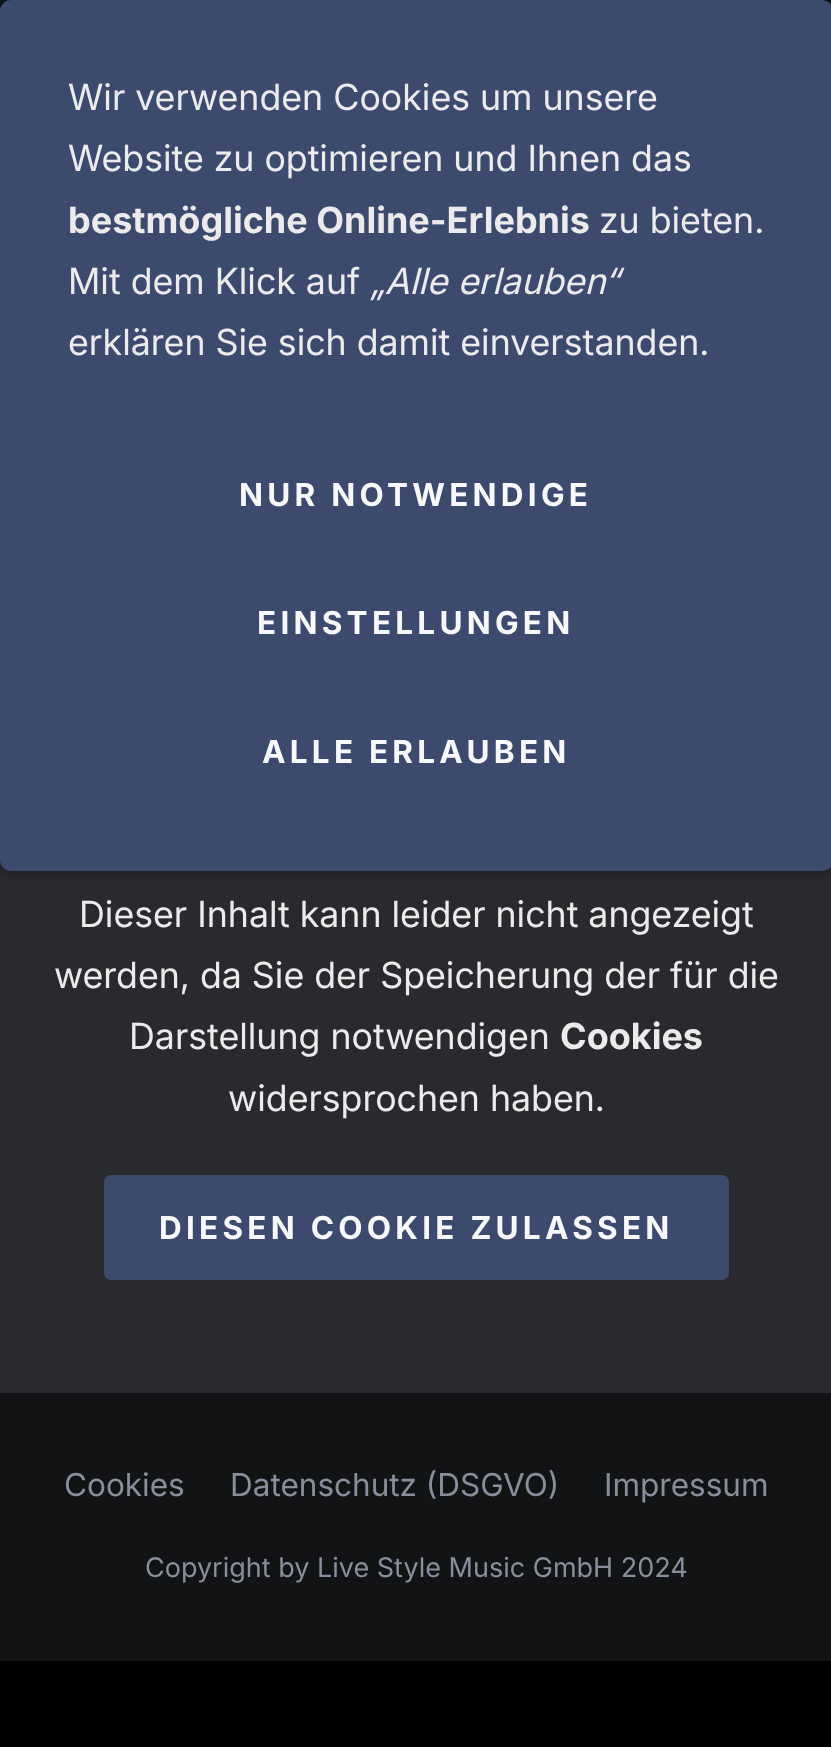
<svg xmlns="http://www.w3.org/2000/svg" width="831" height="1747">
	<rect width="100%" height="100%" fill="#000000" />
	<rect x="0" y="0" width="831" height="11" fill="#121314" />
	<rect x="0" y="860" width="831" height="533" fill="#292A2E" />
	<rect x="0" y="0" width="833" height="871" rx="11" fill="#000000" fill-opacity="0.4" filter="blur(5.5px)" />
	<rect x="0" y="0" width="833" height="871" rx="11" fill="#3C4A6E" />
	<g font-family="Inter" font-size="36" fill="#EBEBEB">
		<text x="68" y="110">Wir verwenden Cookies um unsere</text>
		<text x="68" y="171">Website zu optimieren und Ihnen das</text>
	</g>
	<text x="68" y="233" font-family="Inter" font-size="36" font-weight="700" fill="#EBEBEB">bestmögliche Online-Erlebnis</text>
	<g font-family="Inter" font-size="36" fill="#EBEBEB">
		<text x="599" y="233">zu bieten.</text>
		<text x="68" y="294">Mit dem Klick auf</text>
	</g>
	<text x="370" y="294" font-family="Inter" font-size="36" font-style="italic" fill="#EBEBEB">„Alle erlauben“</text>
	<text x="68" y="355" font-family="Inter" font-size="36" fill="#EBEBEB">erklären Sie sich damit einverstanden.</text>
	<g font-family="Inter" font-size="31.5" font-weight="700" letter-spacing="4.25" fill="#F7F8FA">
		<text x="239" y="506">NUR NOTWENDIGE</text>
		<text x="257" y="634">EINSTELLUNGEN</text>
		<text x="262" y="763">ALLE ERLAUBEN</text>
	</g>
	<g font-family="Inter" font-size="36" fill="#EBEBEB">
		<text x="79" y="927">Dieser Inhalt kann leider nicht angezeigt</text>
		<text x="54" y="988">werden, da Sie der Speicherung der für die</text>
		<text x="129" y="1049">Darstellung notwendigen</text>
	</g>
	<text x="560" y="1049" font-family="Inter" font-size="36" font-weight="700" fill="#EBEBEB">Cookies</text>
	<text x="228" y="1111" font-family="Inter" font-size="36" fill="#EBEBEB">widersprochen haben.</text>
	<rect x="104" y="1175" width="625" height="105" rx="7" fill="#3C4A6E" />
	<text x="159" y="1239" font-family="Inter" font-size="31.5" font-weight="700" letter-spacing="4.25" fill="#F7F8FA">DIESEN COOKIE ZULASSEN</text>
	<rect x="0" y="1393" width="831" height="268" fill="#121314" />
	<g font-family="'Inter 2'" font-size="31.5" fill="#898E9C">
		<text x="64" y="1496">Cookies</text>
		<text x="230" y="1496">Datenschutz (DSGVO)</text>
		<text x="604" y="1496">Impressum</text>
	</g>
	<text x="145" y="1577" font-family="'Inter 2'" font-size="27" fill="#898E9C">Copyright by Live Style Music GmbH 2024</text>
</svg>
